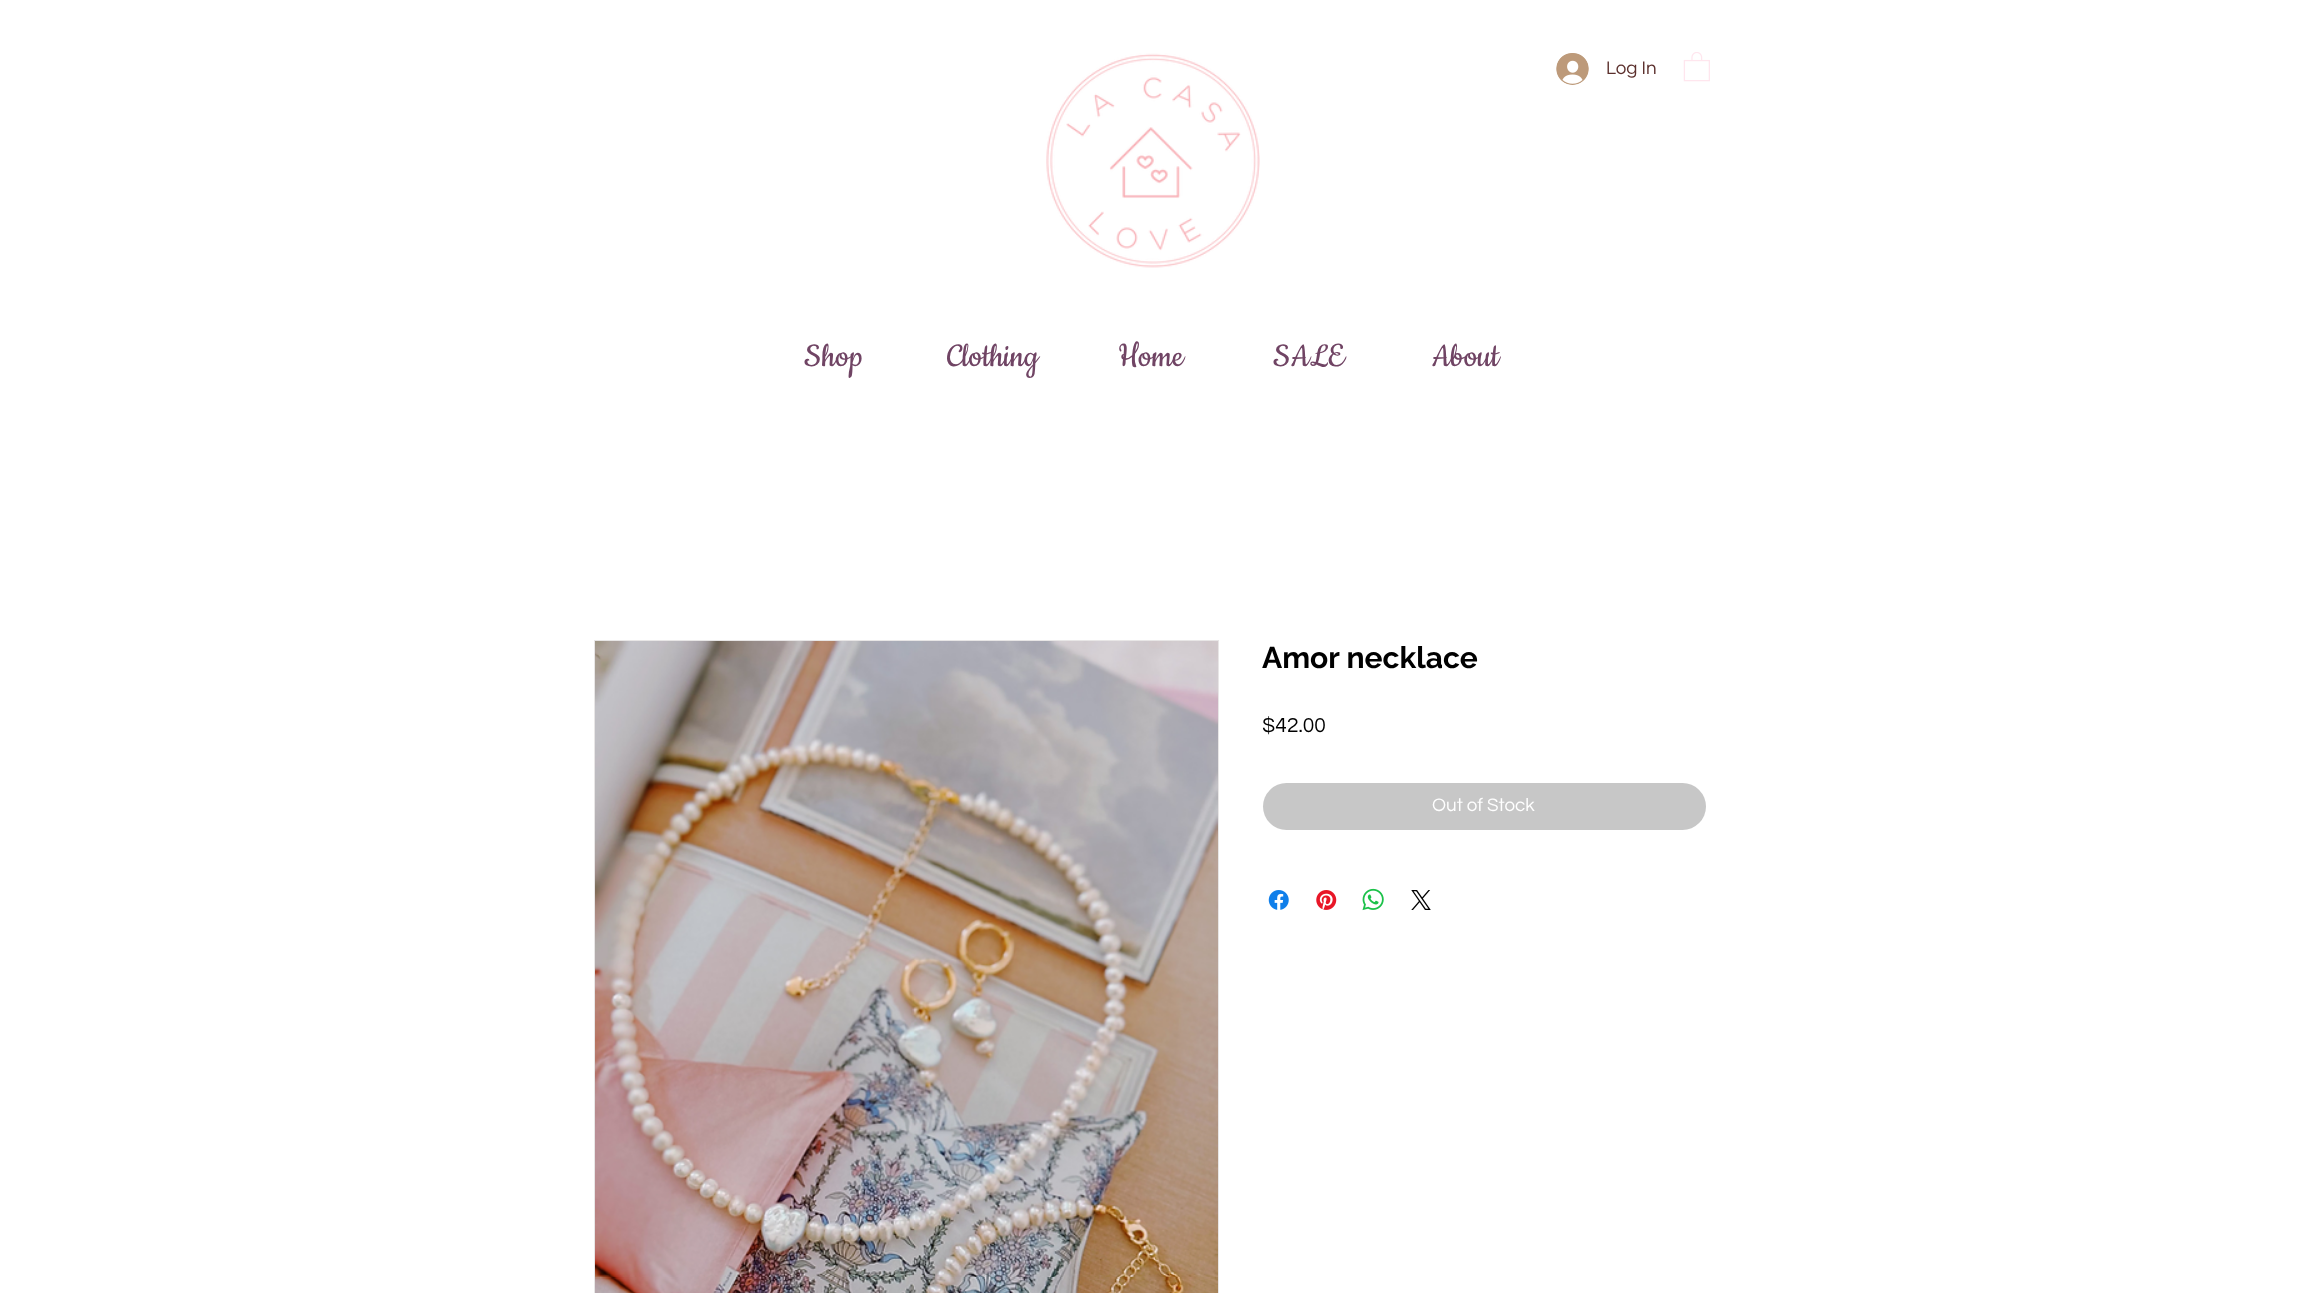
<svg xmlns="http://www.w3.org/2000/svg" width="2298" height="1293">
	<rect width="100%" height="100%" fill="#FFFFFF" />
	<image x="1046" y="53" width="214" height="215" href="assets/img1.png" />
	<image x="1556" y="53" width="33" height="32" href="assets/img2.png" />
	<text x="1606" y="74" font-family="Questrial" font-size="18.75" fill="#5B2F2C">Log In</text>
	<image x="1683" y="52" width="27" height="30" href="assets/img3.png" />
	<g font-family="Cookie" font-size="37.5" fill="#704464">
		<text x="804" y="366">Shop</text>
		<text x="947" y="366">Clothing</text>
		<text x="1118" y="366">Home</text>
		<text x="1273" y="366">SALE</text>
		<text x="1432" y="366">About</text>
	</g>
	<rect x="594.5" y="640.5" width="624" height="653" fill="none" stroke="#E8E6E6" />
	<image x="595" y="641" width="623" height="652" href="assets/img4.png" />
	<text x="1262" y="668" font-family="Raleway" font-size="30" font-weight="700" fill="#000000">Amor necklace</text>
	<text x="1262" y="732" font-family="Questrial" font-size="21" fill="#000000">$42.00</text>
	<rect x="1263" y="783" width="443" height="47" rx="23.5" fill="#C7C7C7" />
	<text x="1432" y="811" font-family="Questrial" font-size="18.75" fill="#FFFFFF">Out of Stock</text>
	<image x="1268" y="890" width="21" height="20" href="assets/img5.png" />
	<image x="1316" y="890" width="21" height="20" href="assets/img6.png" />
	<image x="1362" y="888" width="22" height="23" href="assets/img7.png" />
	<image x="1411" y="890" width="20" height="20" href="assets/img8.png" />
</svg>
